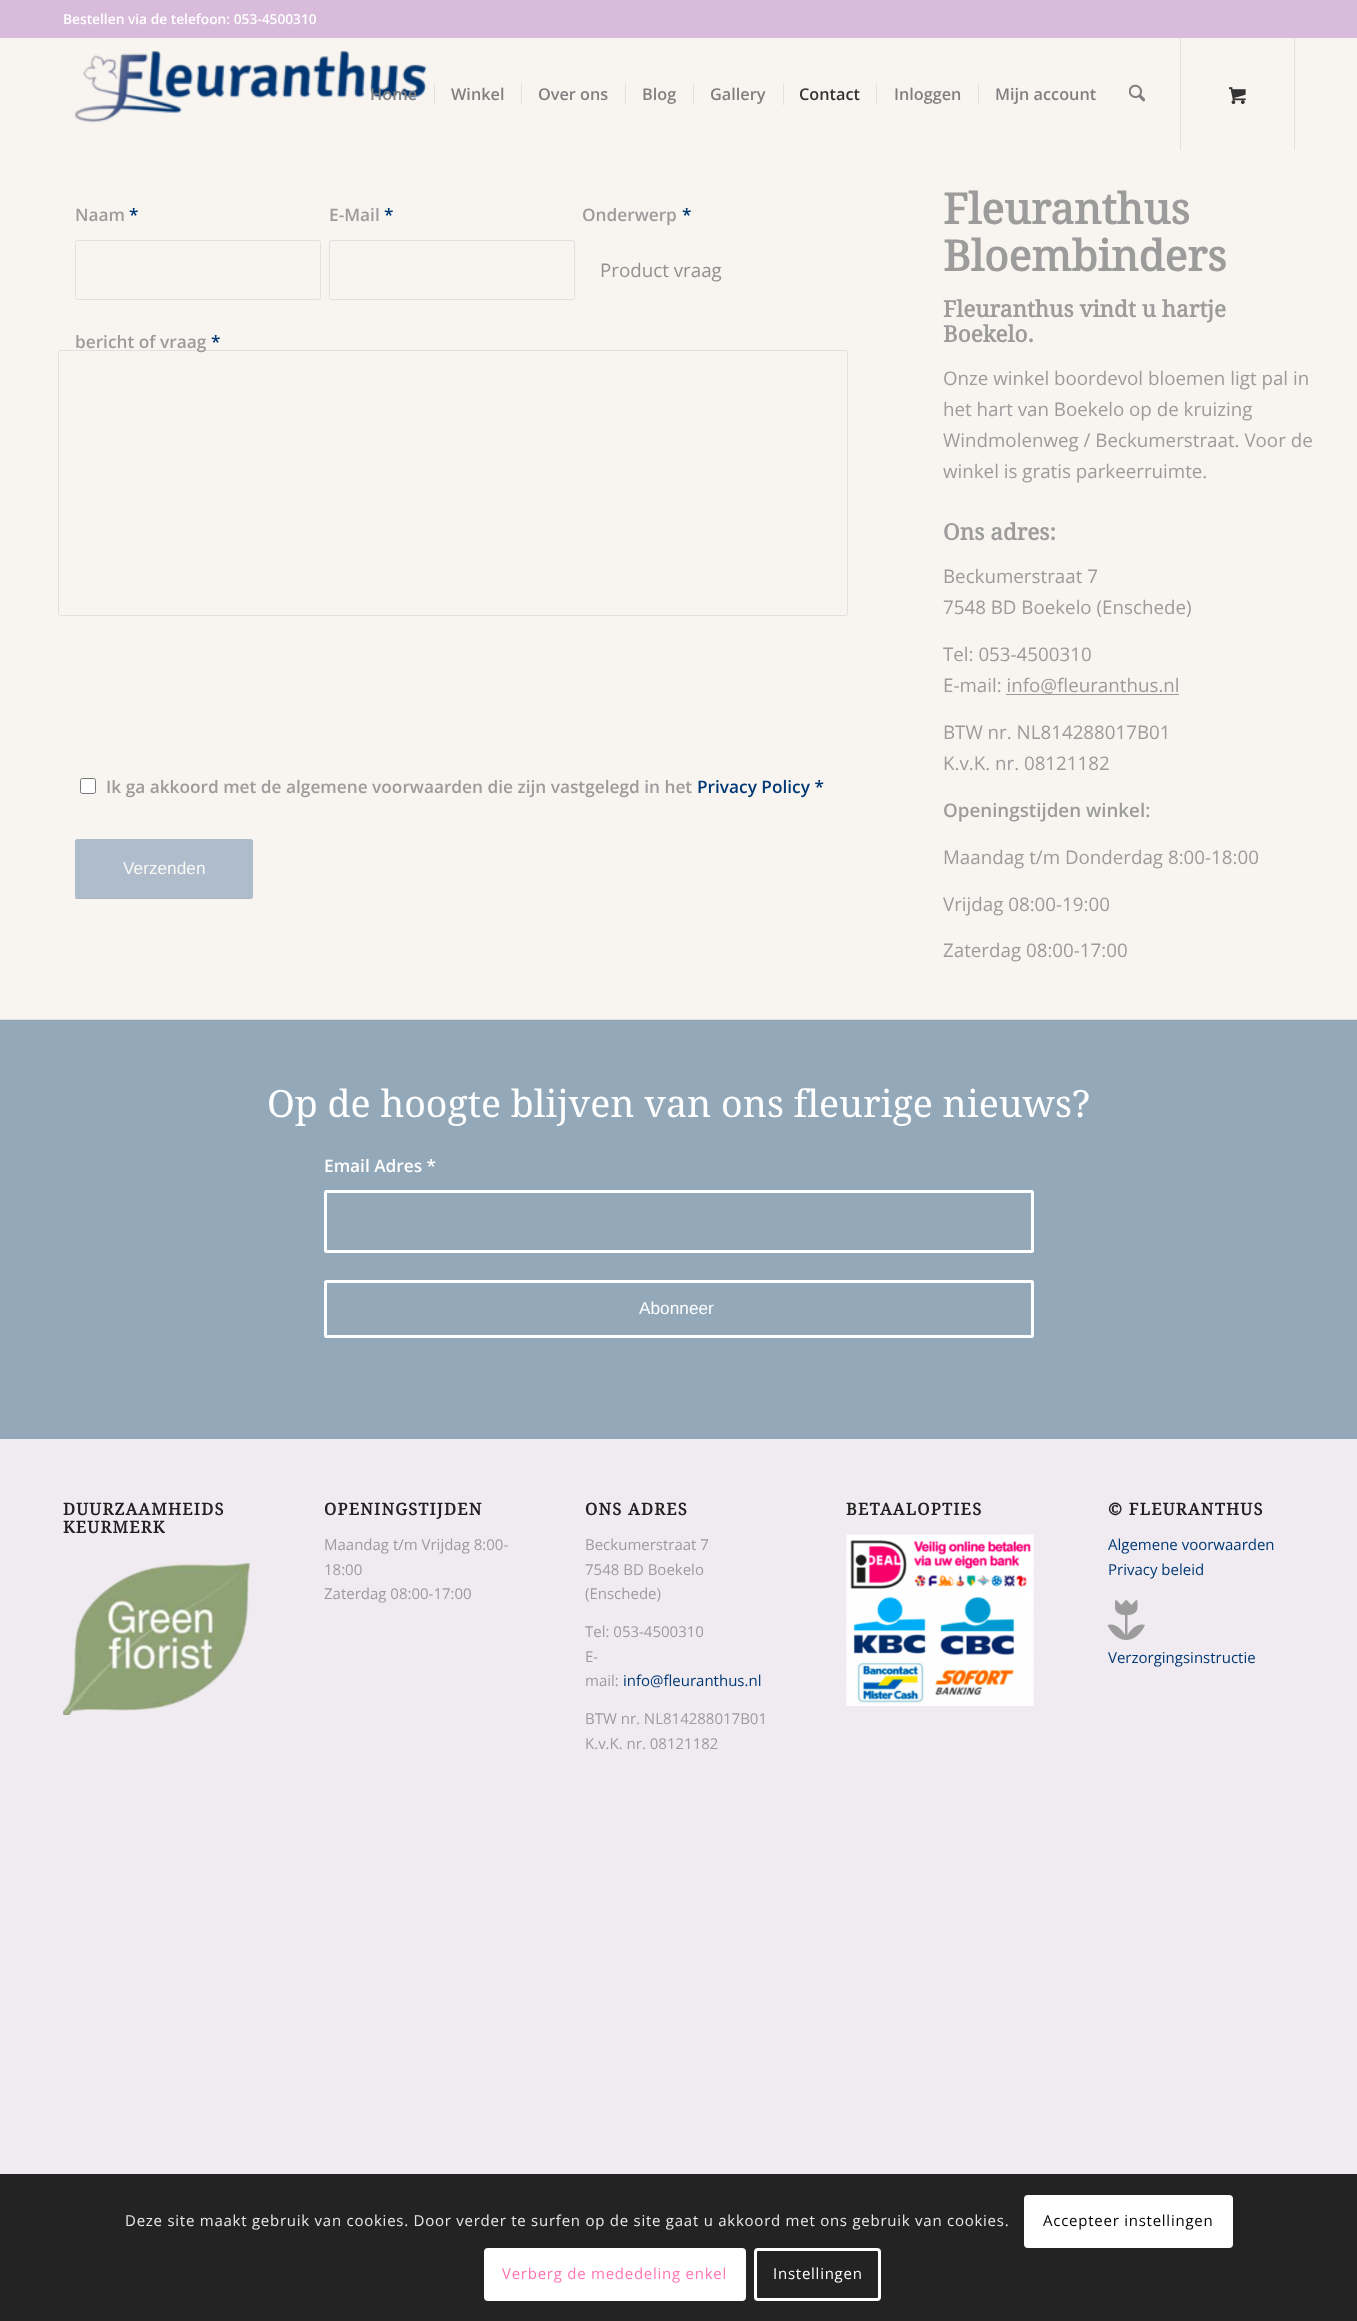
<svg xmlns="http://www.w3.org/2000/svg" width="1357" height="2321">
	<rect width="100%" height="100%" fill="#F0EBF0" />
	<rect x="0" y="38" width="1357" height="981" fill="#F8F5F0" />
	<rect x="0" y="0" width="1357" height="38" fill="#D9BCDB" />
	<text x="63" y="24" font-family="Open Sans" font-size="13.75" font-weight="600" fill="#FFFFFF">Bestellen via de telefoon: 053-4500310</text>
	<image x="74" y="50" width="353" height="73" href="assets/img1.png" />
	<g font-family="Open Sans" font-size="16.25" font-weight="600" fill="#808080">
		<text x="370" y="100">Home</text>
		<text x="451" y="100">Winkel</text>
	</g>
	<rect x="434" y="83" width="1" height="22" fill="#E1E1E1" />
	<text x="538" y="100" font-family="Open Sans" font-size="16.25" font-weight="600" fill="#808080">Over ons</text>
	<rect x="521" y="83" width="1" height="22" fill="#E1E1E1" />
	<text x="642" y="100" font-family="Open Sans" font-size="16.25" font-weight="600" fill="#808080">Blog</text>
	<rect x="625" y="83" width="1" height="22" fill="#E1E1E1" />
	<text x="710" y="100" font-family="Open Sans" font-size="16.25" font-weight="600" fill="#808080">Gallery</text>
	<rect x="693" y="83" width="1" height="22" fill="#E1E1E1" />
	<text x="799" y="100" font-family="Open Sans" font-size="16.25" font-weight="600" fill="#333333">Contact</text>
	<rect x="783" y="83" width="1" height="22" fill="#E1E1E1" />
	<text x="894" y="100" font-family="Open Sans" font-size="16.25" font-weight="600" fill="#808080">Inloggen</text>
	<rect x="876" y="83" width="1" height="22" fill="#E1E1E1" />
	<text x="995" y="100" font-family="Open Sans" font-size="16.25" font-weight="600" fill="#808080">Mijn account</text>
	<rect x="978" y="83" width="1" height="22" fill="#E1E1E1" />
	<image x="1129" y="84" width="16" height="18" href="assets/img2.png" />
	<rect x="1294" y="38" width="1" height="112" fill="#E1E1E1" />
	<rect x="1180" y="38" width="1" height="112" fill="#E1E1E1" />
	<image x="1229" y="87" width="17" height="17" href="assets/img3.png" />
	<text x="75" y="221" font-family="Open Sans" font-size="17.25" font-weight="600" fill="#9C9C9C">Naam</text>
	<text x="129" y="221" font-family="Open Sans" font-size="17.25" font-weight="600" fill="#003874">*</text>
	<rect x="75.5" y="240.5" width="245" height="59" rx="2" fill="none" stroke="#E1E1E1" />
	<text x="329" y="221" font-family="Open Sans" font-size="17.25" font-weight="600" fill="#9C9C9C">E-Mail</text>
	<text x="384" y="221" font-family="Open Sans" font-size="17.25" font-weight="600" fill="#003874">*</text>
	<rect x="329.5" y="240.5" width="245" height="59" rx="2" fill="none" stroke="#E1E1E1" />
	<text x="582" y="221" font-family="Open Sans" font-size="17.25" font-weight="600" fill="#9C9C9C">Onderwerp</text>
	<text x="682" y="221" font-family="Open Sans" font-size="17.25" font-weight="600" fill="#003874">*</text>
	<text x="600" y="277" font-family="Open Sans" font-size="18.75" fill="#919191">Product vraag</text>
	<rect x="58.5" y="350.5" width="789" height="265" rx="2" fill="none" stroke="#E1E1E1" />
	<text x="75" y="348" font-family="Open Sans" font-size="17.25" font-weight="600" fill="#9C9C9C">bericht of vraag</text>
	<text x="211" y="348" font-family="Open Sans" font-size="17.25" font-weight="600" fill="#003874">*</text>
	<rect x="80.5" y="778.5" width="15" height="15" rx="2" fill="#FFFFFF" stroke="#767676" />
	<text x="106" y="793" font-family="Open Sans" font-size="17.25" font-weight="600" fill="#9C9C9C">Ik ga akkoord met de algemene voorwaarden die zijn vastgelegd in het</text>
	<text x="697" y="793" font-family="Open Sans" font-size="17.25" font-weight="600" fill="#003874">Privacy Policy *</text>
	<rect x="75" y="839" width="178" height="60" rx="2.5" fill="#AEBCCB" />
	<rect x="76" y="898" width="175" height="1" fill="#AEB2C1" />
	<text x="123" y="874" font-family="Liberation Sans" font-size="17.25" fill="#FAF8F5">Verzenden</text>
	<g font-family="Droid Serif" font-size="42.5" font-weight="700" fill="#9C9C9C">
		<text x="943" y="224">Fleuranthus</text>
		<text x="943" y="271">Bloembinders</text>
	</g>
	<g font-family="Droid Serif" font-size="22.5" font-weight="700" fill="#9C9C9C">
		<text x="943" y="317">Fleuranthus vindt u hartje</text>
		<text x="943" y="342">Boekelo.</text>
	</g>
	<g font-family="Open Sans" font-size="18.75" fill="#9C9C9C">
		<text x="943" y="385">Onze winkel boordevol bloemen ligt pal in</text>
		<text x="943" y="416">het hart van Boekelo op de kruizing</text>
		<text x="943" y="447">Windmolenweg / Beckumerstraat. Voor de</text>
		<text x="943" y="478">winkel is gratis parkeerruimte.</text>
	</g>
	<text x="943" y="540" font-family="Droid Serif" font-size="22.5" font-weight="700" fill="#9C9C9C">Ons adres:</text>
	<g font-family="Open Sans" font-size="18.75" fill="#9C9C9C">
		<text x="943" y="583">Beckumerstraat 7</text>
		<text x="943" y="614">7548 BD Boekelo (Enschede)</text>
		<text x="943" y="661">Tel: 053-4500310</text>
		<text x="943" y="692">E-mail: info@fleuranthus.nl</text>
	</g>
	<rect x="1006" y="694" width="173" height="1" fill="#9C9C9C" />
	<g font-family="Open Sans" font-size="18.75" fill="#9C9C9C">
		<text x="943" y="739">BTW nr. NL814288017B01</text>
		<text x="943" y="770">K.v.K. nr. 08121182</text>
	</g>
	<text x="943" y="817" font-family="Open Sans" font-size="18.75" font-weight="600" fill="#9C9C9C">Openingstijden winkel:</text>
	<g font-family="Open Sans" font-size="18.75" fill="#9C9C9C">
		<text x="943" y="864">Maandag t/m Donderdag 8:00-18:00</text>
		<text x="943" y="911">Vrijdag 08:00-19:00</text>
		<text x="943" y="957">Zaterdag 08:00-17:00</text>
	</g>
	<rect x="0" y="1019" width="1357" height="1" fill="#E1E1E1" />
	<rect x="0" y="1020" width="1357" height="419" fill="#93A8B9" />
	<text x="267" y="1117" font-family="Droid Serif" font-size="37.5" fill="#FFFFFF">Op de hoogte blijven van ons fleurige nieuws?</text>
	<text x="324" y="1172" font-family="Open Sans" font-size="17.25" font-weight="600" fill="#FFFFFF">Email Adres *</text>
	<rect x="325.5" y="1191.5" width="707" height="60" rx="1" fill="none" stroke="#FFFFFF" stroke-width="3" />
	<rect x="325.5" y="1281.5" width="707" height="55" rx="1" fill="none" stroke="#FFFFFF" stroke-width="3" />
	<text x="639" y="1314" font-family="Liberation Sans" font-size="17.25" fill="#FFFFFF">Abonneer</text>
	<g font-family="Droid Serif" font-size="16.5" font-weight="700" letter-spacing="1.25" fill="#222222">
		<text x="63" y="1515">DUURZAAMHEIDS</text>
		<text x="63" y="1533">KEURMERK</text>
	</g>
	<image x="63" y="1563" width="187" height="152" href="assets/img4.png" />
	<text x="324" y="1515" font-family="Droid Serif" font-size="16.5" font-weight="700" letter-spacing="1.25" fill="#222222">OPENINGSTIJDEN</text>
	<g font-family="Open Sans" font-size="15" fill="#9C9C9C">
		<text x="324" y="1550">Maandag t/m Vrijdag 8:00-</text>
		<text x="324" y="1575">18:00</text>
		<text x="324" y="1599">Zaterdag 08:00-17:00</text>
	</g>
	<text x="585" y="1515" font-family="Droid Serif" font-size="16.5" font-weight="700" letter-spacing="1.25" fill="#222222">ONS ADRES</text>
	<g font-family="Open Sans" font-size="15" fill="#9C9C9C">
		<text x="585" y="1550">Beckumerstraat 7</text>
		<text x="585" y="1575">7548 BD Boekelo</text>
		<text x="585" y="1599">(Enschede)</text>
		<text x="585" y="1637">Tel: 053-4500310</text>
		<text x="585" y="1662">E-</text>
		<text x="585" y="1686">mail:</text>
	</g>
	<text x="623" y="1686" font-family="Open Sans" font-size="15" fill="#003874">info@fleuranthus.nl</text>
	<g font-family="Open Sans" font-size="15" fill="#9C9C9C">
		<text x="585" y="1724">BTW nr. NL814288017B01</text>
		<text x="585" y="1749">K.v.K. nr. 08121182</text>
	</g>
	<text x="846" y="1515" font-family="Droid Serif" font-size="16.5" font-weight="700" letter-spacing="1.25" fill="#222222">BETAALOPTIES</text>
	<image x="846" y="1534" width="188" height="172" href="assets/img5.png" />
	<text x="1108" y="1515" font-family="Droid Serif" font-size="16.5" font-weight="700" letter-spacing="1.25" fill="#222222">© FLEURANTHUS</text>
	<g font-family="Open Sans" font-size="15" fill="#003874">
		<text x="1108" y="1550">Algemene voorwaarden</text>
		<text x="1108" y="1575">Privacy beleid</text>
	</g>
	<image x="1107" y="1600" width="38" height="40" href="assets/img6.png" />
	<text x="1108" y="1663" font-family="Open Sans" font-size="15" fill="#003874">Verzorgingsinstructie</text>
	<rect x="0" y="2174" width="1357" height="147" fill="#242324" />
	<text x="125" y="2226" font-family="Open Sans" font-size="15" letter-spacing="0.75" fill="#E9E9E9">Deze site maakt gebruik van cookies. Door verder te surfen op de site gaat u akkoord met ons gebruik van cookies.</text>
	<rect x="1024" y="2195" width="209" height="53" rx="4" fill="#FFFFFF" />
	<text x="1043" y="2226" font-family="Open Sans" font-size="15" letter-spacing="0.75" fill="#000000">Accepteer instellingen</text>
	<rect x="485.5" y="2249.5" width="259" height="50" rx="2.5" fill="#FFFFFF" stroke="#FFFFFF" stroke-width="3" />
	<text x="502" y="2279" font-family="Open Sans" font-size="15" letter-spacing="0.75" fill="#FF75B5">Verberg de mededeling enkel</text>
	<rect x="755.5" y="2249.5" width="124" height="50" rx="2.5" fill="none" stroke="#FFFFFF" stroke-width="3" />
	<text x="773" y="2279" font-family="Open Sans" font-size="15" letter-spacing="0.75" fill="#FFFFFF">Instellingen</text>
</svg>
